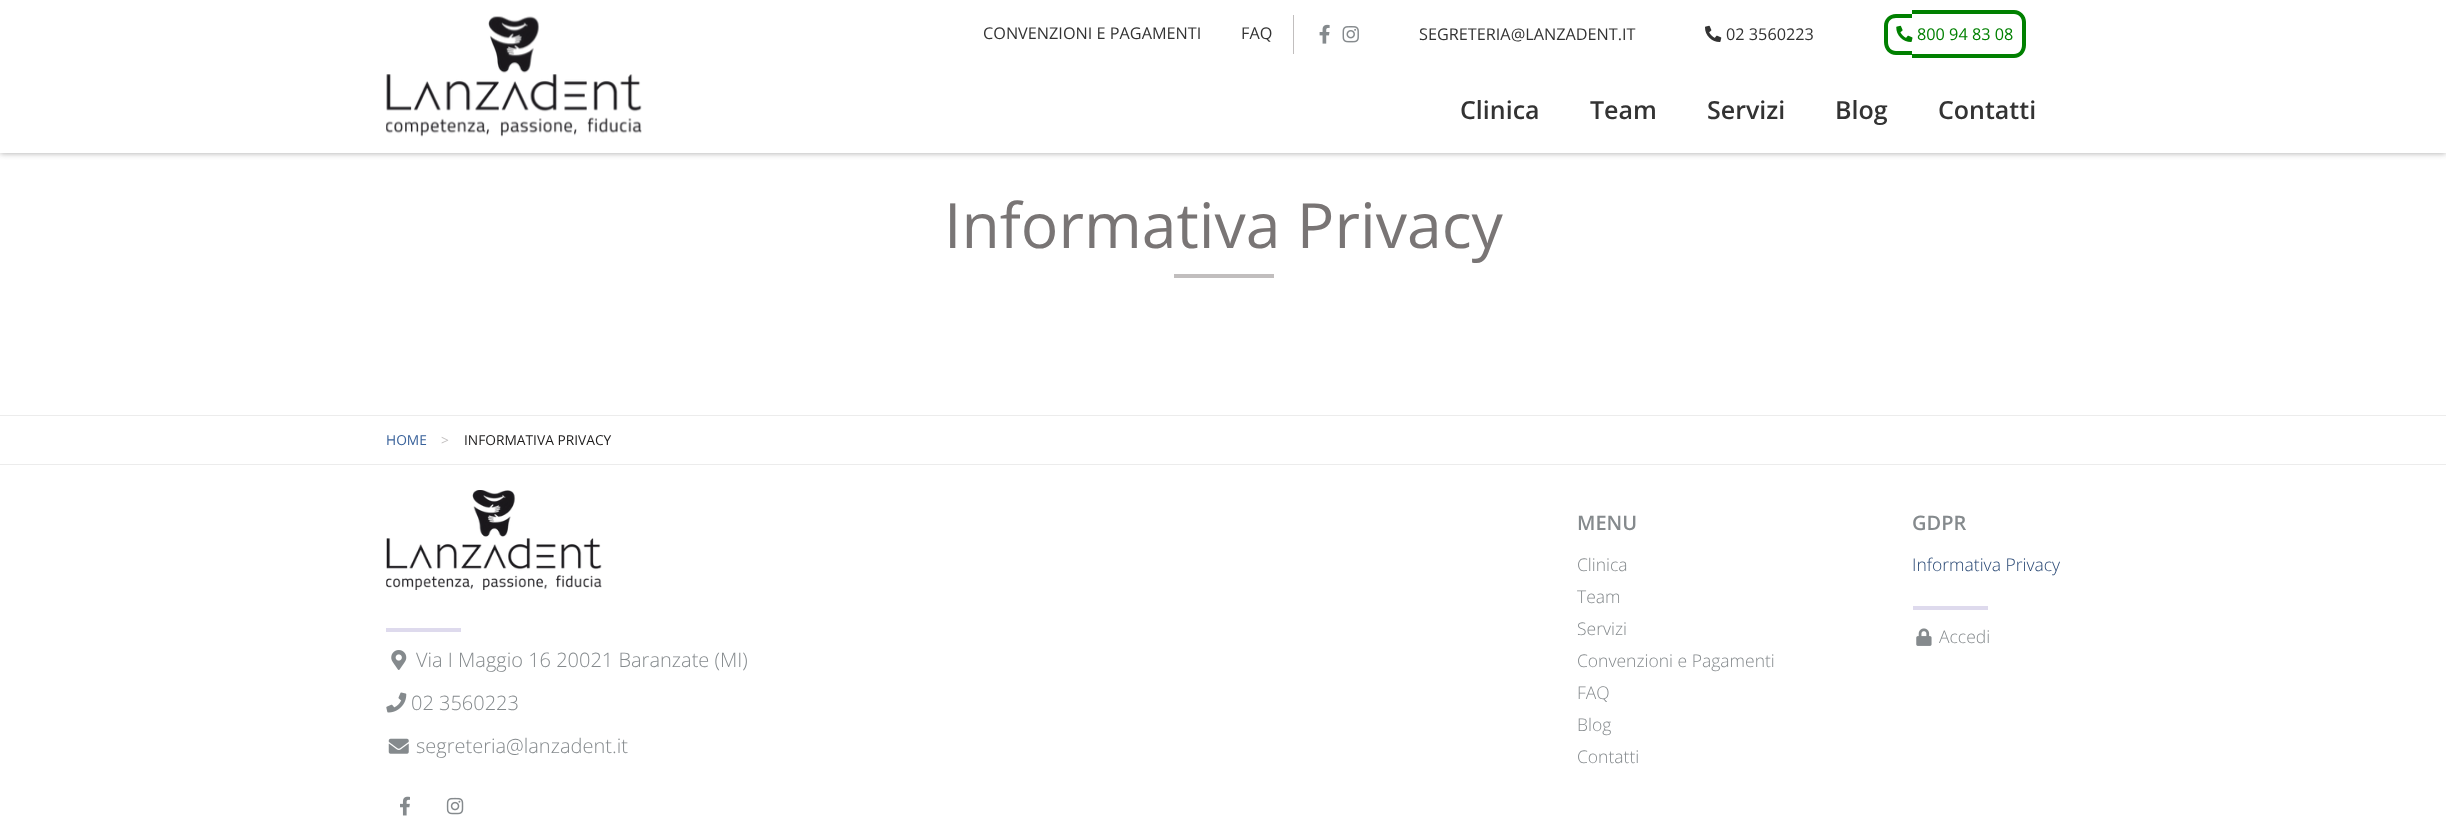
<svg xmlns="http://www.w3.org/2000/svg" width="2446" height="836">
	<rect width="100%" height="100%" fill="#FFFFFF" />
	<rect x="0" y="0" width="2446" height="153" fill="#1D1C1C" fill-opacity="0.4" filter="blur(3px)" />
	<rect x="0" y="0" width="2446" height="153" fill="#FFFFFF" />
	<rect x="1293" y="15" width="1" height="39" fill="#C1BEBE" />
	<g font-family="Open Sans" font-size="16.25" fill="#333333">
		<text x="983" y="39">CONVENZIONI E PAGAMENTI</text>
		<text x="1241" y="39">FAQ</text>
	</g>
	<image x="1319" y="24" width="11" height="20" href="assets/img1.png" />
	<image x="1342" y="26" width="17" height="17" href="assets/img2.png" />
	<text x="1419" y="40" font-family="Open Sans" font-size="16.25" fill="#333333">SEGRETERIA@LANZADENT.IT</text>
	<image x="1705" y="25" width="17" height="17" href="assets/img3.png" />
	<text x="1726" y="40" font-family="Open Sans" font-size="16.25" fill="#333333">02 3560223</text>
	<path d="M1896 14H1912V55H1896C1889 55 1884 49 1884 42V26C1884 19 1889 14 1896 14ZM1896 18H1912V51H1896C1891 51 1888 47 1888 42V26C1888 21 1891 18 1896 18Z" fill="#008000" fill-rule="evenodd" />
	<path d="M1912 10H2014C2021 10 2026 16 2026 22V45C2026 52 2021 58 2014 58H1912ZM1912 14H2014C2019 14 2022 18 2022 22V45C2022 50 2019 54 2014 54H1912Z" fill="#008000" fill-rule="evenodd" />
	<image x="1896" y="25" width="17" height="17" href="assets/img4.png" />
	<text x="1917" y="40" font-family="Open Sans" font-size="16.25" fill="#008000">800 94 83 08</text>
	<image x="386" y="16" width="256" height="121" href="assets/img5.png" />
	<g font-family="Open Sans" font-size="25" font-weight="600" fill="#333333">
		<text x="1460" y="119">Clinica</text>
		<text x="1590" y="119">Team</text>
		<text x="1707" y="119">Servizi</text>
		<text x="1835" y="119">Blog</text>
		<text x="1938" y="119">Contatti</text>
	</g>
	<text x="944" y="248" font-family="Open Sans" font-size="62.5" fill="#797575">Informativa Privacy</text>
	<rect x="1174" y="274" width="100" height="4" fill="#C1BEBE" />
	<rect x="0" y="415" width="2446" height="1" fill="#ECECEC" />
	<text x="386" y="445" font-family="Open Sans" font-size="13.75" fill="#38619A">HOME</text>
	<text x="441" y="445" font-family="Open Sans" font-size="13.75" fill="#C1BEBE">&gt;</text>
	<text x="464" y="445" font-family="Open Sans" font-size="13.75" fill="#1D1C1C">INFORMATIVA PRIVACY</text>
	<rect x="0" y="464" width="2446" height="1" fill="#ECECEC" />
	<image x="386" y="490" width="216" height="100" href="assets/img6.png" />
	<rect x="386" y="628" width="75" height="4" fill="#DEDAED" />
	<image x="391" y="650" width="16" height="20" href="assets/img7.png" />
	<text x="416" y="667" font-family="Open Sans" font-size="20" font-weight="300" fill="#858A8D">Via I Maggio 16 20021 Baranzate (MI)</text>
	<image x="386" y="692" width="21" height="21" href="assets/img8.png" />
	<text x="411" y="710" font-family="Open Sans" font-size="20" font-weight="300" fill="#858A8D">02 3560223</text>
	<image x="388" y="738" width="21" height="16" href="assets/img9.png" />
	<text x="416" y="753" font-family="Open Sans" font-size="20" font-weight="300" fill="#858A8D">segreteria@lanzadent.it</text>
	<image x="400" y="796" width="10" height="20" href="assets/img10.png" />
	<image x="446" y="797" width="18" height="18" href="assets/img11.png" />
	<text x="1577" y="530" font-family="Open Sans" font-size="20" font-weight="600" fill="#858A8D">MENU</text>
	<g font-family="Open Sans" font-size="17.5" font-weight="300" fill="#858A8D">
		<text x="1577" y="571">Clinica</text>
		<text x="1577" y="603">Team</text>
		<text x="1577" y="635">Servizi</text>
		<text x="1577" y="667">Convenzioni e Pagamenti</text>
		<text x="1577" y="699">FAQ</text>
		<text x="1577" y="731">Blog</text>
		<text x="1577" y="763">Contatti</text>
	</g>
	<text x="1912" y="530" font-family="Open Sans" font-size="20" font-weight="600" fill="#858A8D">GDPR</text>
	<text x="1912" y="571" font-family="Open Sans" font-size="17.5" font-weight="300" fill="#2A4975">Informativa Privacy</text>
	<rect x="1913" y="606" width="75" height="4" fill="#DEDAED" />
	<image x="1916" y="628" width="16" height="18" href="assets/img12.png" />
	<text x="1939" y="643" font-family="Open Sans" font-size="17.5" font-weight="300" fill="#858A8D">Accedi</text>
</svg>
